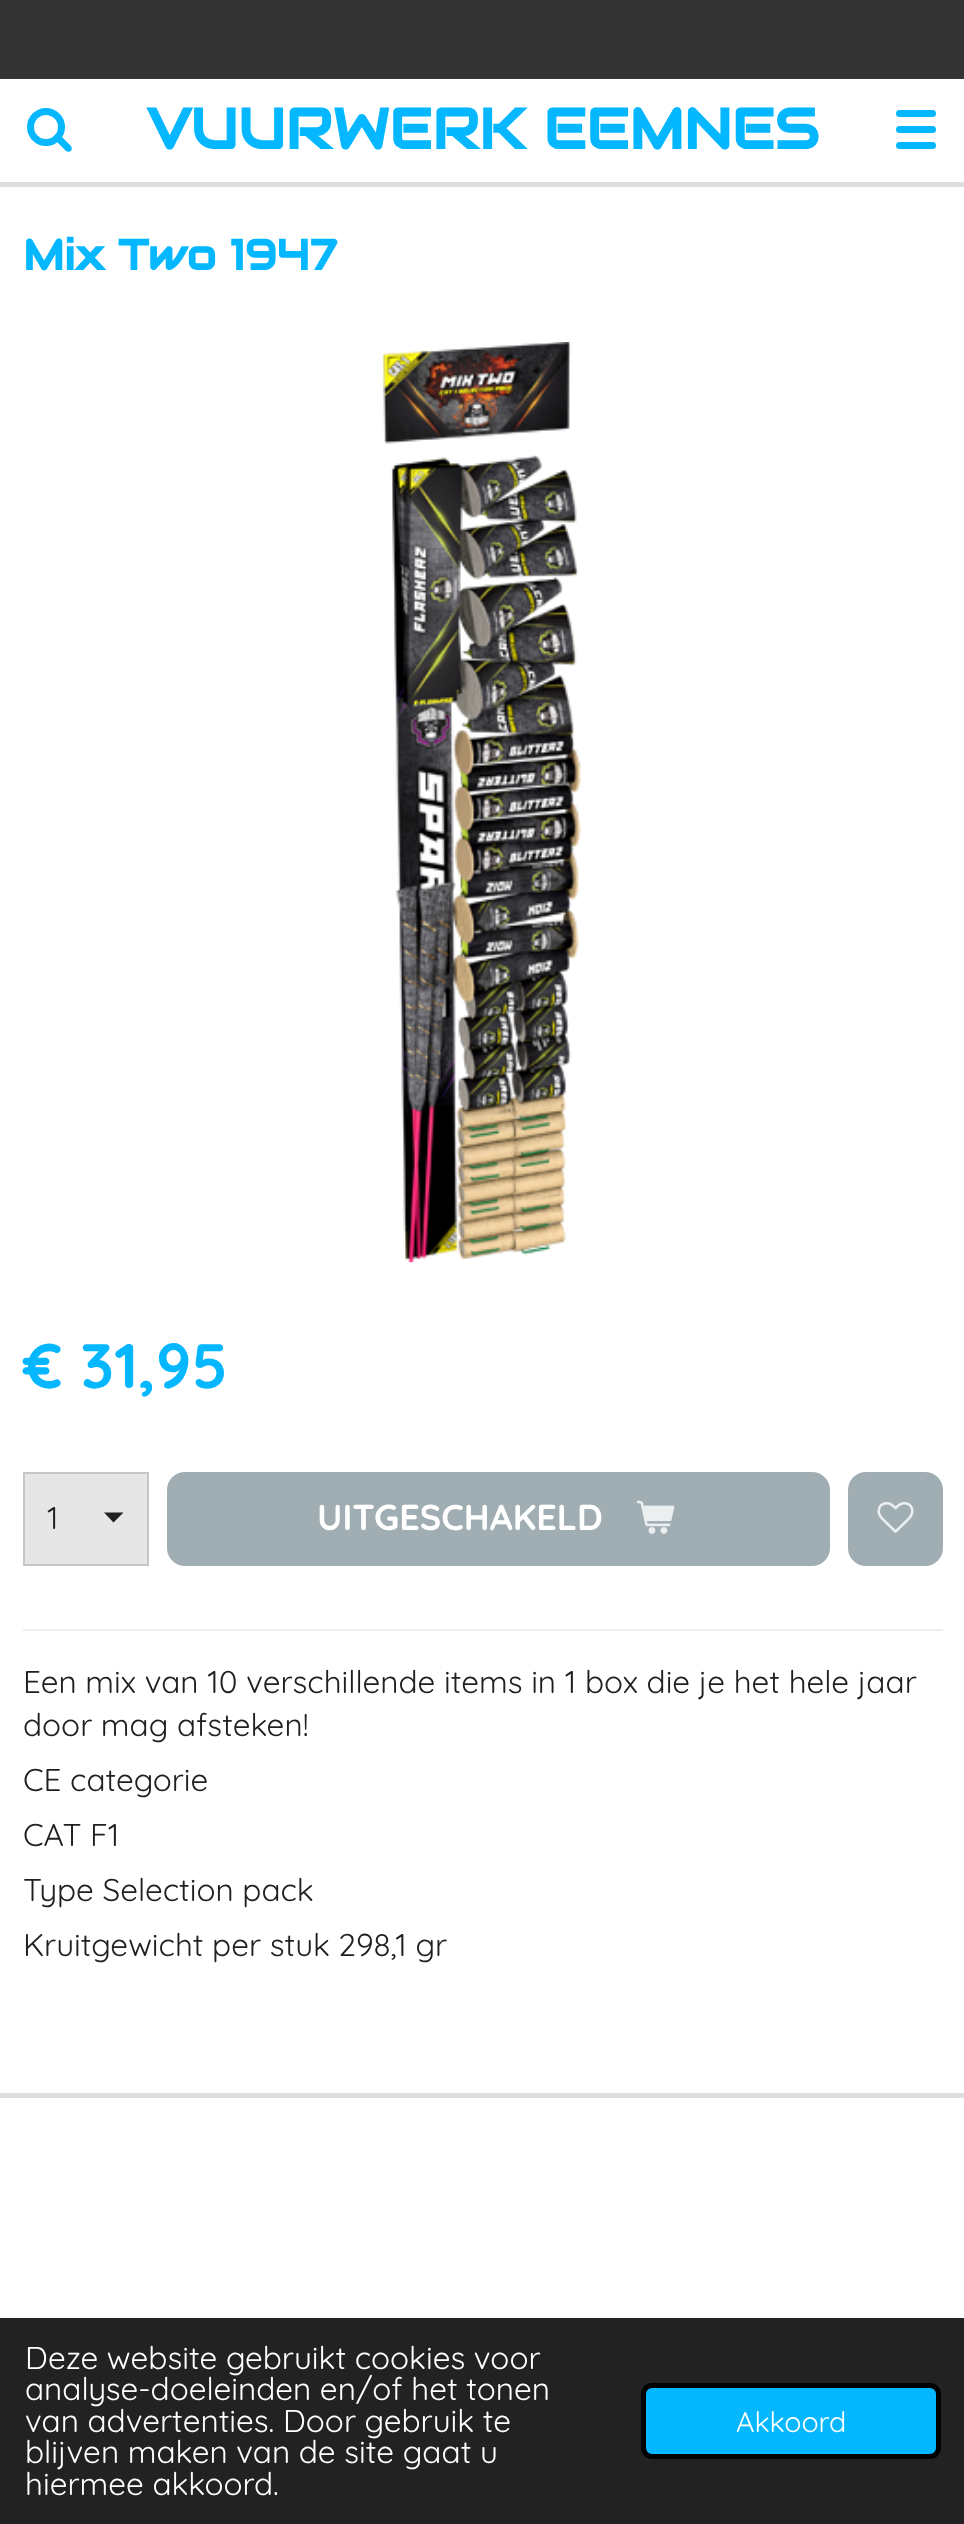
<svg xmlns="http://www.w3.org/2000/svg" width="964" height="2524">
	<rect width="100%" height="100%" fill="#FFFFFF" />
	<rect x="0" y="0" width="964" height="79" fill="#333333" />
	<circle cx="46" cy="127" r="15.5" fill="none" stroke="#05B7FF" stroke-width="7" />
	<path d="M57.5 132.5L71 146C72 147.5 72 149.5 71 151C69.5 152 67.5 152 66 151L52.5 137.5Z" fill="#05B7FF" />
	<text x="147" y="149" font-family="Audiowide" font-size="56.75" font-weight="700" fill="#05B7FF">VUURWERK EEMNES</text>
	<rect x="896" y="126" width="40" height="7" rx="3.5" fill="#05B7FF" />
	<rect x="896" y="110" width="40" height="7" rx="3.5" fill="#05B7FF" />
	<rect x="896" y="142" width="40" height="7" rx="3.5" fill="#05B7FF" />
	<rect x="0" y="182" width="964" height="5" fill="#DEDEDE" />
	<rect x="0" y="2093" width="964" height="5" fill="#DEDEDE" />
	<text x="23" y="270" font-family="Audiowide" font-size="42.75" font-weight="700" fill="#05B7FF">Mix Two 1947</text>
	<image x="382" y="342" width="199" height="921" href="assets/img1.png" />
	<text x="23" y="1388" font-family="Quicksand" font-size="63" font-weight="700" fill="#05B7FF">€ 31,95</text>
	<rect x="25" y="1474" width="122" height="90" fill="#E6E6E6" />
	<path d="M113.5 1522.5L104 1512.5H123.5Z" fill="#202020" />
	<rect x="24" y="1473" width="124" height="92" fill="none" stroke="#C6C6C6" stroke-width="2" />
	<text x="47" y="1529" font-family="Quicksand" font-size="31.5" fill="#202020">1</text>
	<rect x="167" y="1472" width="663" height="94" rx="18" fill="#A0AEB4" />
	<text x="317" y="1530" font-family="Quicksand" font-size="36" font-weight="700" fill="#FFFFFF">UITGESCHAKELD</text>
	<image x="636" y="1500" width="39" height="34" href="assets/img2.png" />
	<rect x="848" y="1472" width="95" height="94" rx="18" fill="#A0AEB4" />
	<image x="877" y="1502" width="37" height="31" href="assets/img3.png" />
	<rect x="23" y="1629" width="920" height="2" fill="#EFEFEF" />
	<g font-family="Quicksand" font-size="31.5" fill="#202020">
		<text x="23" y="1693">Een mix van 10 verschillende items in 1 box die je het hele jaar</text>
		<text x="23" y="1736">door mag afsteken!</text>
		<text x="23" y="1791">CE categorie</text>
		<text x="23" y="1846">CAT F1</text>
		<text x="23" y="1901">Type Selection pack</text>
		<text x="23" y="1956">Kruitgewicht per stuk 298,1 gr</text>
	</g>
	<rect x="0" y="2318" width="964" height="206" fill="#222222" />
	<g font-family="Quicksand" font-size="31.5" fill="#FFFFFF">
		<text x="25" y="2369">Deze website gebruikt cookies voor</text>
		<text x="25" y="2400">analyse-doeleinden en/of het tonen</text>
		<text x="25" y="2432">van advertenties. Door gebruik te</text>
		<text x="25" y="2463">blijven maken van de site gaat u</text>
		<text x="25" y="2495">hiermee akkoord.</text>
	</g>
	<rect x="643.5" y="2385.5" width="295" height="71" rx="8.5" fill="#05B7FF" stroke="#000000" stroke-width="5" />
	<text x="736" y="2432" font-family="Quicksand" font-size="28.5" fill="#FFFFFF">Akkoord</text>
</svg>
